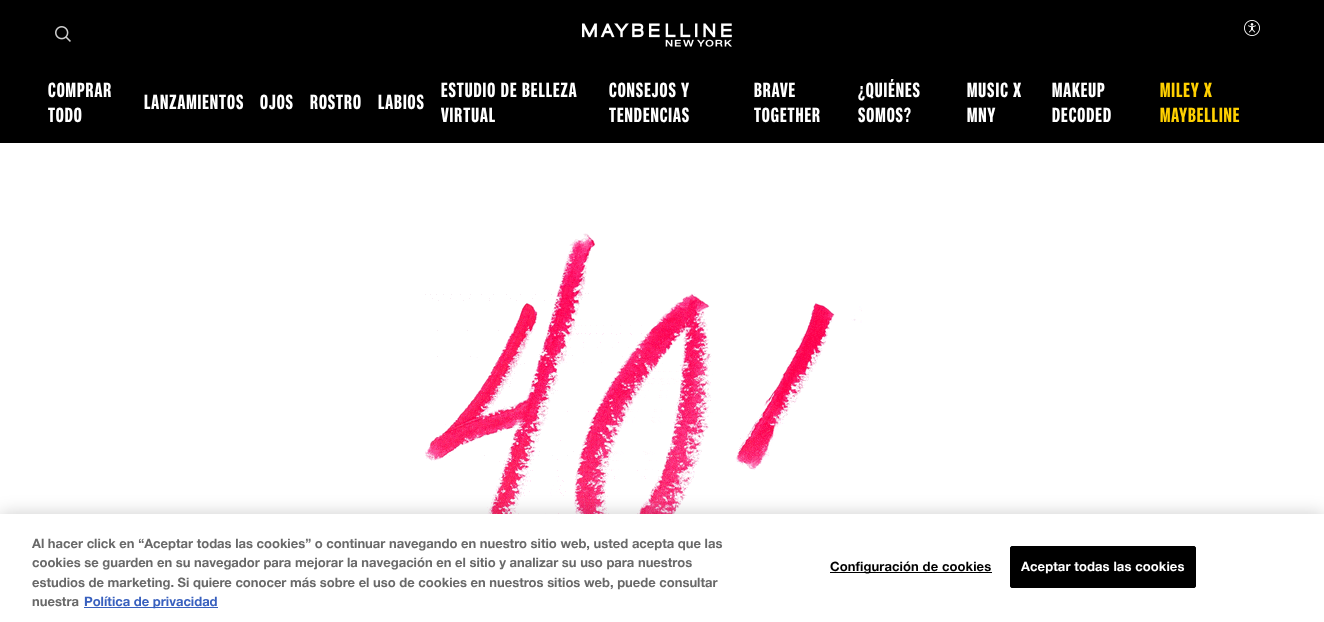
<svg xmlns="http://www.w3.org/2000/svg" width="1324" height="622">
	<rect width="100%" height="100%" fill="#FFFFFF" />
	<rect x="0" y="0" width="1324" height="143" fill="#000000" />
	<image x="55" y="26" width="16" height="16" href="assets/img1.png" />
	<image x="582" y="23" width="150" height="24" href="assets/img2.png" />
	<image x="1244" y="20" width="16" height="16" href="assets/img3.png" />
	<g font-family="'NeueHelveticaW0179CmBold'" font-size="20" font-weight="700" letter-spacing="1" fill="#FFFFFF">
		<text x="48" y="97">COMPRAR</text>
		<text x="48" y="122">TODO</text>
		<text x="144" y="109">LANZAMIENTOS</text>
		<text x="260" y="109">OJOS</text>
		<text x="310" y="109">ROSTRO</text>
		<text x="378" y="109">LABIOS</text>
		<text x="441" y="97">ESTUDIO DE BELLEZA</text>
		<text x="441" y="122">VIRTUAL</text>
		<text x="609" y="97">CONSEJOS Y</text>
		<text x="609" y="122">TENDENCIAS</text>
		<text x="754" y="97">BRAVE</text>
		<text x="754" y="122">TOGETHER</text>
		<text x="858" y="97">¿QUIÉNES</text>
		<text x="858" y="122">SOMOS?</text>
		<text x="967" y="97">MUSIC X</text>
		<text x="967" y="122">MNY</text>
		<text x="1052" y="97">MAKEUP</text>
		<text x="1052" y="122">DECODED</text>
	</g>
	<g font-family="'NeueHelveticaW0179CmBold'" font-size="20" font-weight="700" letter-spacing="1" fill="#FFD000">
		<text x="1160" y="97">MILEY X</text>
		<text x="1160" y="122">MAYBELLINE</text>
	</g>
	<image x="425" y="233" width="437" height="281" href="assets/img4.png" />
	<rect x="0" y="514" width="1324" height="108" fill="#000000" fill-opacity="0.2" filter="blur(9px)" />
	<rect x="0" y="514" width="1324" height="108" fill="#FFFFFF" />
	<g font-family="Helvetica Neue" font-size="13" font-weight="700" fill="#696969">
		<text x="32" y="548">Al hacer click en “Aceptar todas las cookies” o continuar navegando en nuestro sitio web, usted acepta que las</text>
		<text x="32" y="567">cookies se guarden en su navegador para mejorar la navegación en el sitio y analizar su uso para nuestros</text>
		<text x="32" y="587">estudios de marketing. Si quiere conocer más sobre el uso de cookies en nuestros sitios web, puede consultar</text>
		<text x="32" y="606">nuestra</text>
	</g>
	<rect x="84" y="607" width="134" height="1" fill="#3860BE" />
	<text x="84" y="606" font-family="Helvetica Neue" font-size="13" font-weight="700" fill="#3860BE">Política de privacidad</text>
	<rect x="830" y="572" width="162" height="1" fill="#000000" />
	<text x="830" y="571" font-family="Helvetica Neue" font-size="13" font-weight="700" letter-spacing="0.1" fill="#000000">Configuración de cookies</text>
	<rect x="1010.5" y="546.5" width="185" height="41" rx="1.5" fill="#000000" stroke="#000000" />
	<text x="1021" y="571" font-family="Helvetica Neue" font-size="13" font-weight="700" letter-spacing="0.1" fill="#FFFFFF">Aceptar todas las cookies</text>
</svg>
